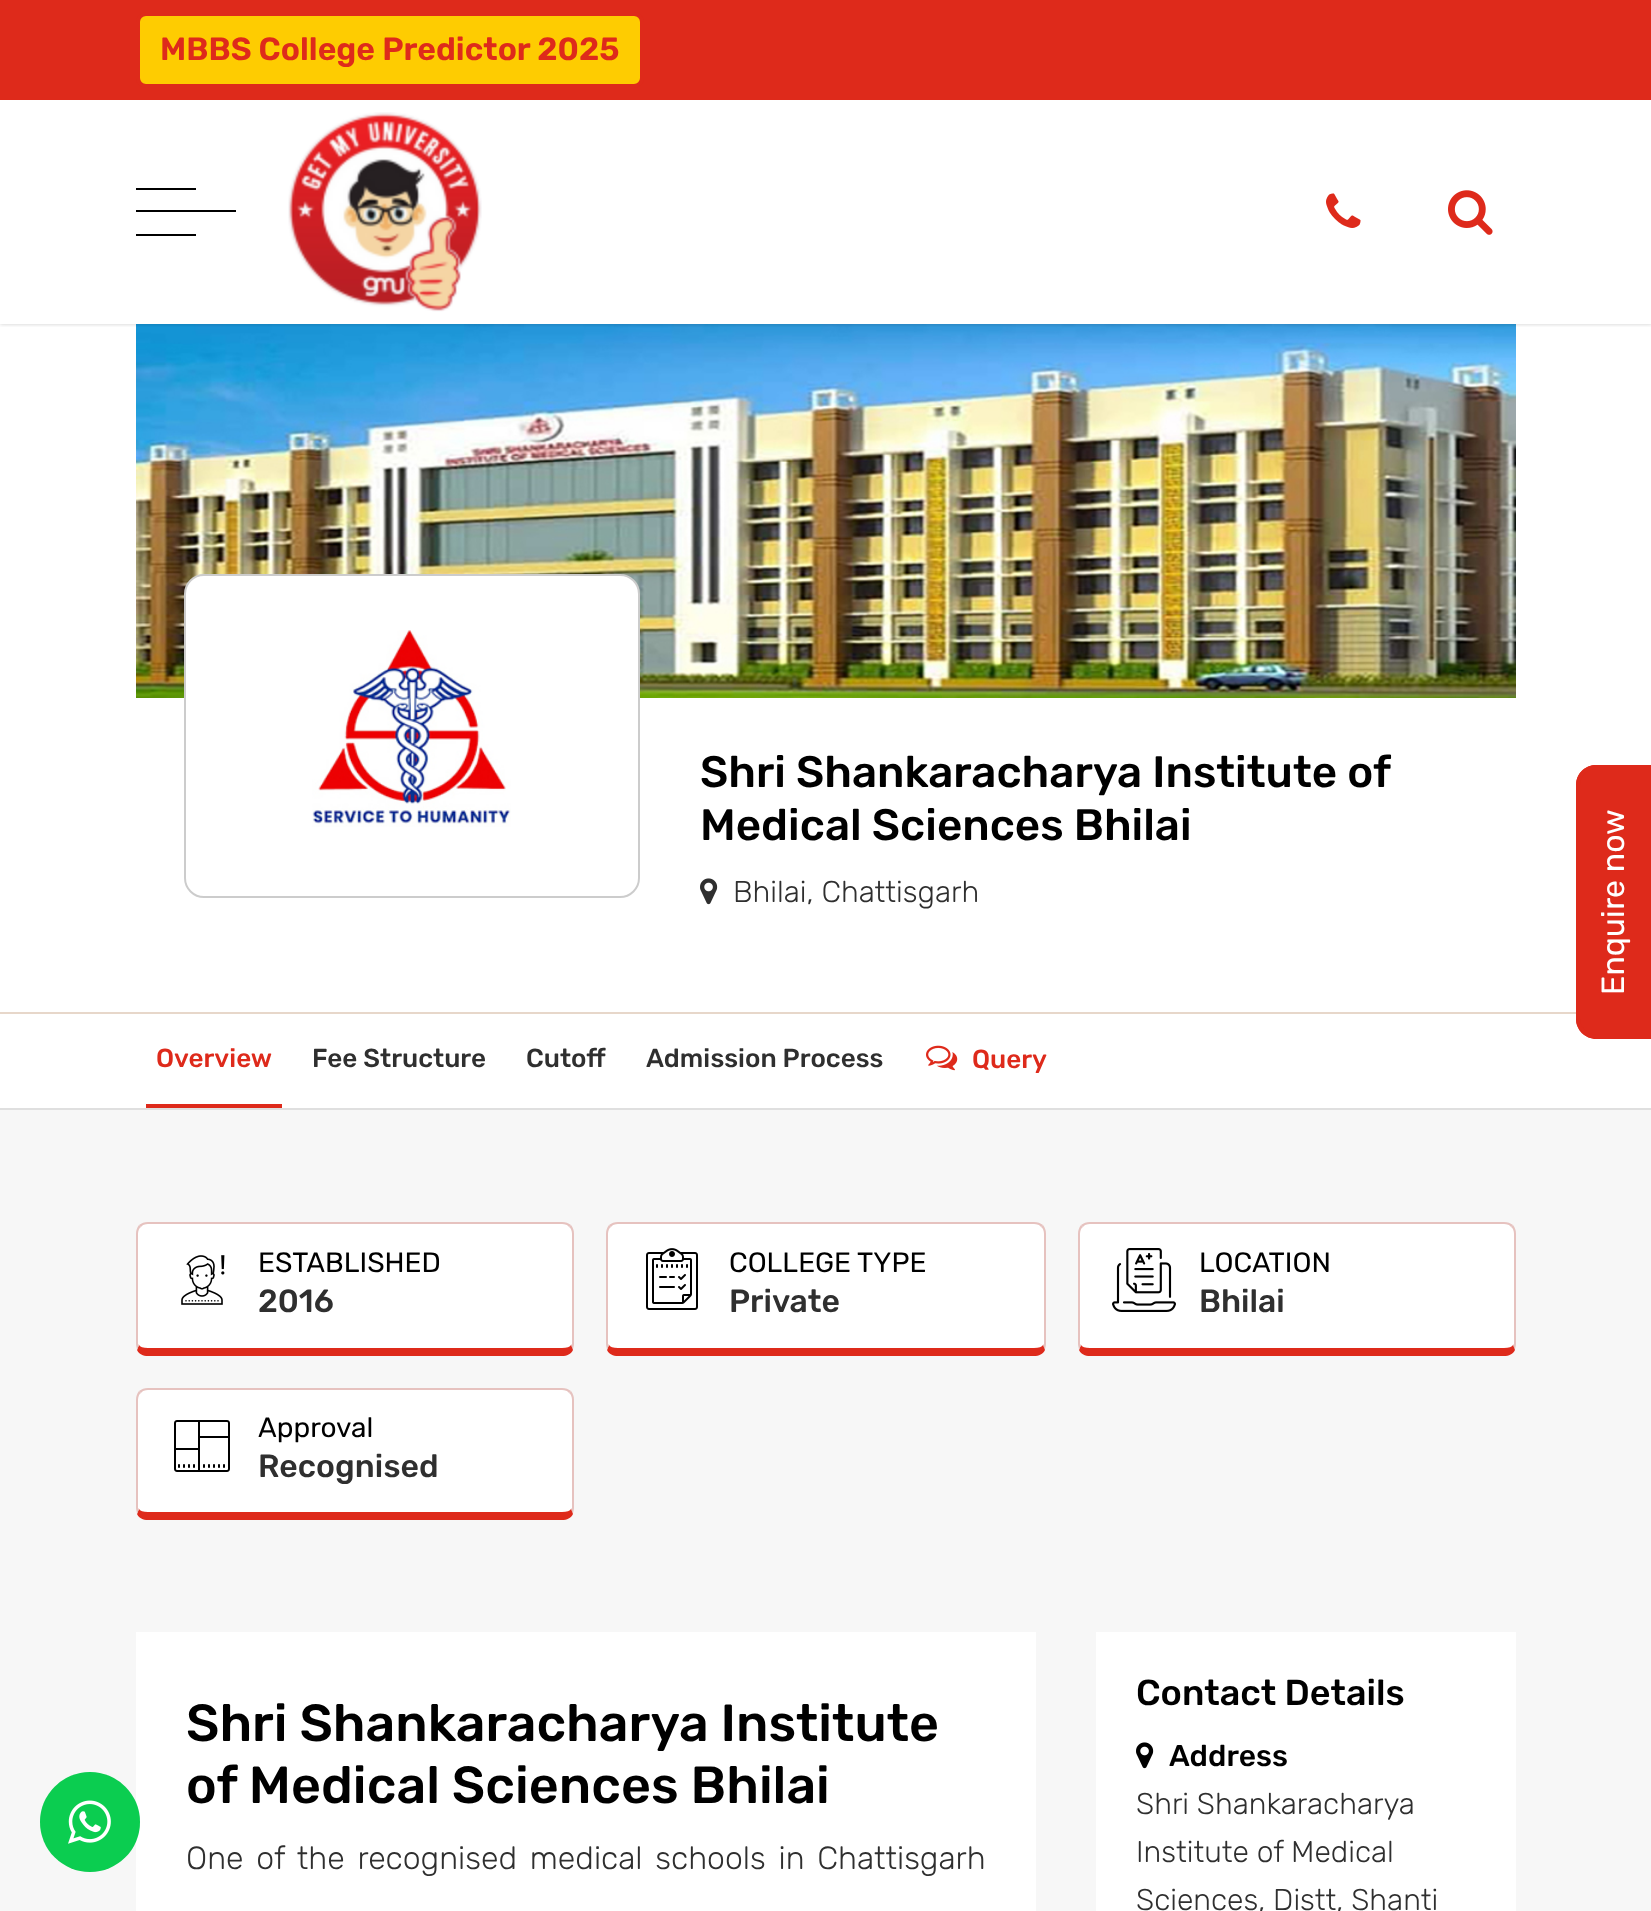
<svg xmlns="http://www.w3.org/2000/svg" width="1651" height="1911">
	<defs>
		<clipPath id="clip1"><rect x="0" y="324" width="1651" height="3" /></clipPath>
	</defs>
	<rect width="100%" height="100%" fill="#FFFFFF" />
	<image x="136" y="324" width="1380" height="374" href="assets/img4.png" />
	<g clip-path="url(#clip1)">
		<rect x="0" y="0" width="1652" height="324" fill="#000000" fill-opacity="0.2" filter="blur(2px)" />
	</g>
	<rect x="0" y="0" width="1651" height="100" fill="#DE2A1B" />
	<rect x="138" y="14" width="504" height="72" rx="8" fill="#FECC01" stroke="#DE2A1B" stroke-width="4" />
	<text x="160" y="60" font-family="Rubik" font-size="32" font-weight="600" fill="#DE2A1B">MBBS College Predictor 2025</text>
	<rect x="136" y="188" width="60" height="2" fill="#000000" />
	<rect x="136" y="234" width="60" height="2" fill="#000000" />
	<rect x="136" y="210" width="100" height="2" fill="#000000" />
	<image x="288" y="112" width="194" height="200" href="assets/img1.png" />
	<image x="1326" y="193" width="35" height="35" href="assets/img2.png" />
	<image x="1448" y="190" width="45" height="45" href="assets/img3.png" />
	<rect x="185" y="575" width="454" height="322" rx="19" fill="#FFFFFF" stroke="#CCCCCC" stroke-width="2" />
	<image x="312" y="630" width="199" height="197" href="assets/img5.png" />
	<g font-family="Rubik" font-size="44" font-weight="500" fill="#000000">
		<text x="700" y="787">Shri Shankaracharya Institute of</text>
		<text x="700" y="840">Medical Sciences Bhilai</text>
	</g>
	<image x="700" y="878" width="18" height="27" href="assets/img6.png" />
	<text x="733" y="902" font-family="Rubik" font-size="30" font-weight="300" fill="#2F2F2F">Bhilai, Chattisgarh</text>
	<path d="M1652 1039H1596C1585 1039 1576 1030 1576 1019V785C1576 774 1585 765 1596 765H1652Z" fill="#DE2A1B" />
	<path d="M1650 1036.5H1596C1586 1036.5 1578 1028.5 1578 1018.5V785C1578 775 1586 767 1596 767H1650Z" fill="none" stroke="#DE2A1B" stroke-width="4" />
	<text x="1624" y="995" transform="rotate(-90 1624 995)" font-family="Rubik" font-size="32" fill="#FFFFFF">Enquire now</text>
	<rect x="0" y="1110" width="1651" height="801" fill="#F7F7F7" />
	<rect x="136" y="1632" width="900" height="279" fill="#FFFFFF" />
	<circle cx="90" cy="1822" r="50" fill="#0CCD50" />
	<circle cx="90" cy="1822" r="50" fill="#0CCD50" fill-opacity="0.2" />
	<image x="68" y="1800" width="43" height="44" href="assets/img7.png" />
	<rect x="0" y="1012" width="1576" height="2" fill="#E7D7CA" />
	<rect x="0" y="1108" width="1651" height="2" fill="#DFDFDF" />
	<rect x="146" y="1104" width="136" height="4" fill="#DE2A1B" />
	<text x="156" y="1067" font-family="Rubik" font-size="26" font-weight="500" fill="#DE2A1B">Overview</text>
	<g font-family="Rubik" font-size="26" font-weight="500" fill="#2F2F2F">
		<text x="312" y="1067">Fee Structure</text>
		<text x="526" y="1067">Cutoff</text>
		<text x="646" y="1067">Admission Process</text>
	</g>
	<image x="926" y="1045" width="32" height="26" href="assets/img8.png" />
	<text x="972" y="1068" font-family="Rubik" font-size="26" font-weight="500" fill="#DE2A1B">Query</text>
	<path d="M148 1224H562C568 1224 572 1228 572 1234V1344C572 1346 568 1348 562 1348H148C142 1348 138 1346 138 1344V1234C138 1228 142 1224 148 1224Z" fill="#FFFFFF" />
	<path d="M148 1222C144 1222 142 1223 139 1225L141 1227C142 1225 145 1224 148 1224H562C565 1224 568 1225 569 1227L571 1225C568 1223 566 1222 562 1222Z" fill="#E6C2BF" />
	<path d="M574 1344V1234C574 1230 573 1228 571 1225L569 1227C571 1228 572 1231 572 1234V1344L571 1345L573 1350C573 1348 574 1346 574 1344Z" fill="#E6C2BF" />
	<path d="M148 1356H562C567 1356 571 1354 573 1350L571 1345C570 1347 567 1348 562 1348H148C143 1348 140 1347 139 1345L137 1350C139 1354 143 1356 148 1356Z" fill="#DE2A1B" />
	<path d="M136 1234V1344C136 1346 137 1348 137 1350L139 1345L138 1344V1234C138 1231 139 1228 141 1227L139 1225C137 1228 136 1230 136 1234Z" fill="#E6C2BF" />
	<image x="181" y="1255" width="44" height="50" href="assets/img9.png" />
	<text x="258" y="1272" font-family="Rubik" font-size="28" fill="#000000">ESTABLISHED</text>
	<text x="258" y="1312" font-family="Rubik" font-size="32" font-weight="500" fill="#2F2F2F">2016</text>
	<path d="M618 1224H1034C1040 1224 1044 1228 1044 1234V1344C1044 1346 1040 1348 1034 1348H618C612 1348 608 1346 608 1344V1234C608 1228 612 1224 618 1224Z" fill="#FFFFFF" />
	<path d="M618 1222C614 1222 612 1223 609 1225L611 1227C612 1225 615 1224 618 1224H1034C1037 1224 1040 1225 1041 1227L1043 1225C1040 1223 1038 1222 1034 1222Z" fill="#E6C2BF" />
	<path d="M1046 1344V1234C1046 1230 1045 1228 1043 1225L1041 1227C1043 1228 1044 1231 1044 1234V1344L1043 1345L1045 1350C1045 1348 1046 1346 1046 1344Z" fill="#E6C2BF" />
	<path d="M618 1356H1034C1039 1356 1043 1354 1045 1350L1043 1345C1042 1347 1039 1348 1034 1348H618C613 1348 610 1347 609 1345L607 1350C609 1354 613 1356 618 1356Z" fill="#DE2A1B" />
	<path d="M606 1234V1344C606 1346 607 1348 607 1350L609 1345L608 1344V1234C608 1231 609 1228 611 1227L609 1225C607 1228 606 1230 606 1234Z" fill="#E6C2BF" />
	<image x="646" y="1248" width="52" height="62" href="assets/img10.png" />
	<text x="729" y="1272" font-family="Rubik" font-size="28" fill="#000000">COLLEGE TYPE</text>
	<text x="729" y="1312" font-family="Rubik" font-size="32" font-weight="500" fill="#2F2F2F">Private</text>
	<path d="M1090 1224H1504C1510 1224 1514 1228 1514 1234V1344C1514 1346 1510 1348 1504 1348H1090C1084 1348 1080 1346 1080 1344V1234C1080 1228 1084 1224 1090 1224Z" fill="#FFFFFF" />
	<path d="M1090 1222C1086 1222 1084 1223 1081 1225L1083 1227C1084 1225 1087 1224 1090 1224H1504C1507 1224 1510 1225 1511 1227L1513 1225C1510 1223 1508 1222 1504 1222Z" fill="#E6C2BF" />
	<path d="M1516 1344V1234C1516 1230 1515 1228 1513 1225L1511 1227C1513 1228 1514 1231 1514 1234V1344L1513 1345L1515 1350C1515 1348 1516 1346 1516 1344Z" fill="#E6C2BF" />
	<path d="M1090 1356H1504C1509 1356 1513 1354 1515 1350L1513 1345C1512 1347 1509 1348 1504 1348H1090C1085 1348 1082 1347 1081 1345L1079 1350C1081 1354 1085 1356 1090 1356Z" fill="#DE2A1B" />
	<path d="M1078 1234V1344C1078 1346 1079 1348 1079 1350L1081 1345L1080 1344V1234C1080 1231 1081 1228 1083 1227L1081 1225C1079 1228 1078 1230 1078 1234Z" fill="#E6C2BF" />
	<image x="1112" y="1248" width="64" height="64" href="assets/img11.png" />
	<text x="1199" y="1272" font-family="Rubik" font-size="28" fill="#000000">LOCATION</text>
	<text x="1199" y="1312" font-family="Rubik" font-size="32" font-weight="500" fill="#2F2F2F">Bhilai</text>
	<path d="M148 1390H562C568 1390 572 1394 572 1400V1508C572 1510 568 1512 562 1512H148C142 1512 138 1510 138 1508V1400C138 1394 142 1390 148 1390Z" fill="#FFFFFF" />
	<path d="M148 1388C144 1388 142 1389 139 1391L141 1393C142 1391 145 1390 148 1390H562C565 1390 568 1391 569 1393L571 1391C568 1389 566 1388 562 1388Z" fill="#E6C2BF" />
	<path d="M574 1508V1400C574 1396 573 1394 571 1391L569 1393C571 1394 572 1397 572 1400V1508L571 1509L573 1514C573 1512 574 1510 574 1508Z" fill="#E6C2BF" />
	<path d="M148 1520H562C567 1520 571 1518 573 1514L571 1509C570 1511 567 1512 562 1512H148C143 1512 140 1511 139 1509L137 1514C139 1518 143 1520 148 1520Z" fill="#DE2A1B" />
	<path d="M136 1400V1508C136 1510 137 1512 137 1514L139 1509L138 1508V1400C138 1397 139 1394 141 1393L139 1391C137 1394 136 1396 136 1400Z" fill="#E6C2BF" />
	<image x="174" y="1420" width="56" height="52" href="assets/img12.png" />
	<text x="258" y="1437" font-family="Rubik" font-size="28" fill="#000000">Approval</text>
	<text x="258" y="1477" font-family="Rubik" font-size="32" font-weight="500" fill="#2F2F2F">Recognised</text>
	<g font-family="Rubik" font-size="52" font-weight="500" fill="#000000">
		<text x="186" y="1741">Shri Shankaracharya Institute</text>
		<text x="186" y="1803">of Medical Sciences Bhilai</text>
	</g>
	<text x="186" y="1869" word-spacing="4.5" font-family="Rubik" font-size="32" font-weight="300" fill="#2F2F2F">One of the recognised medical schools in Chattisgarh</text>
	<rect x="1096" y="1632" width="420" height="279" fill="#FFFFFF" />
	<text x="1136" y="1705" font-family="Rubik" font-size="36" font-weight="500" fill="#000000">Contact Details</text>
	<image x="1136" y="1742" width="18" height="27" href="assets/img13.png" />
	<text x="1169" y="1766" font-family="Rubik" font-size="30" font-weight="500" fill="#000000">Address</text>
	<g font-family="Rubik" font-size="30" font-weight="300" fill="#2F2F2F">
		<text x="1136" y="1814">Shri Shankaracharya</text>
		<text x="1136" y="1862">Institute of Medical</text>
		<text x="1136" y="1910">Sciences, Distt, Shanti</text>
	</g>
</svg>
